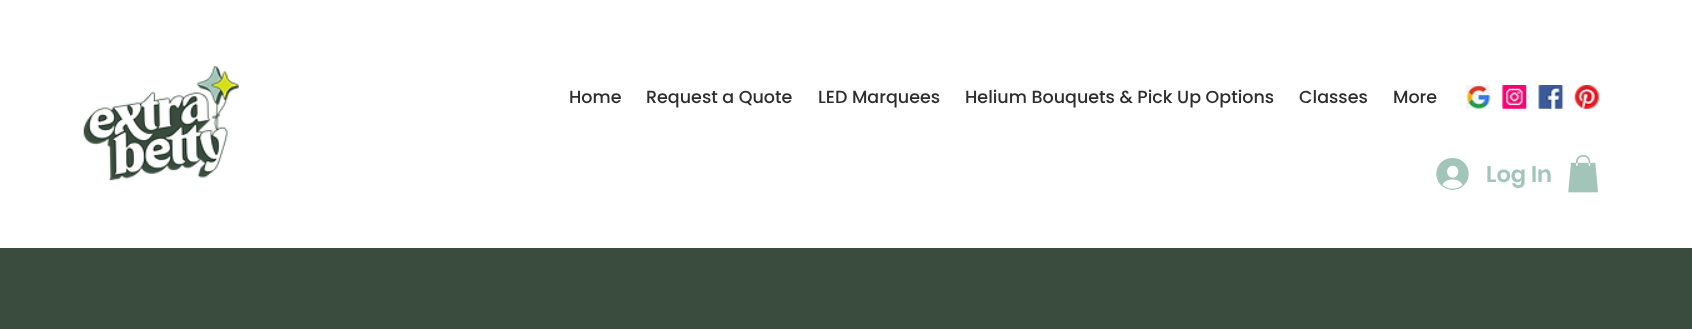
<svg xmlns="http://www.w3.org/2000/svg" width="1692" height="329">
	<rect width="100%" height="100%" fill="#FFFFFF" />
	<image x="83" y="66" width="156" height="115" href="assets/img1.png" />
	<g font-family="Poppins" font-size="17.5" font-weight="500" fill="#2F2E2E">
		<text x="569" y="103">Home</text>
		<text x="646" y="103">Request a Quote</text>
		<text x="818" y="103">LED Marquees</text>
		<text x="965" y="103">Helium Bouquets &amp; Pick Up Options</text>
		<text x="1299" y="103">Classes</text>
		<text x="1393" y="103">More</text>
	</g>
	<image x="1466" y="85" width="25" height="24" href="assets/img2.png" />
	<image x="1502" y="85" width="25" height="24" href="assets/img3.png" />
	<image x="1538" y="85" width="26" height="24" href="assets/img4.png" />
	<image x="1574" y="85" width="26" height="24" href="assets/img5.png" />
	<image x="1436" y="158" width="33" height="32" href="assets/img6.png" />
	<text x="1486" y="182" font-family="Poppins" font-size="22.5" font-weight="600" fill="#A1C5B9">Log In</text>
	<image x="1568" y="155" width="30" height="38" href="assets/img7.png" />
	<rect x="0" y="248" width="1692" height="81" fill="#394C3E" />
</svg>
